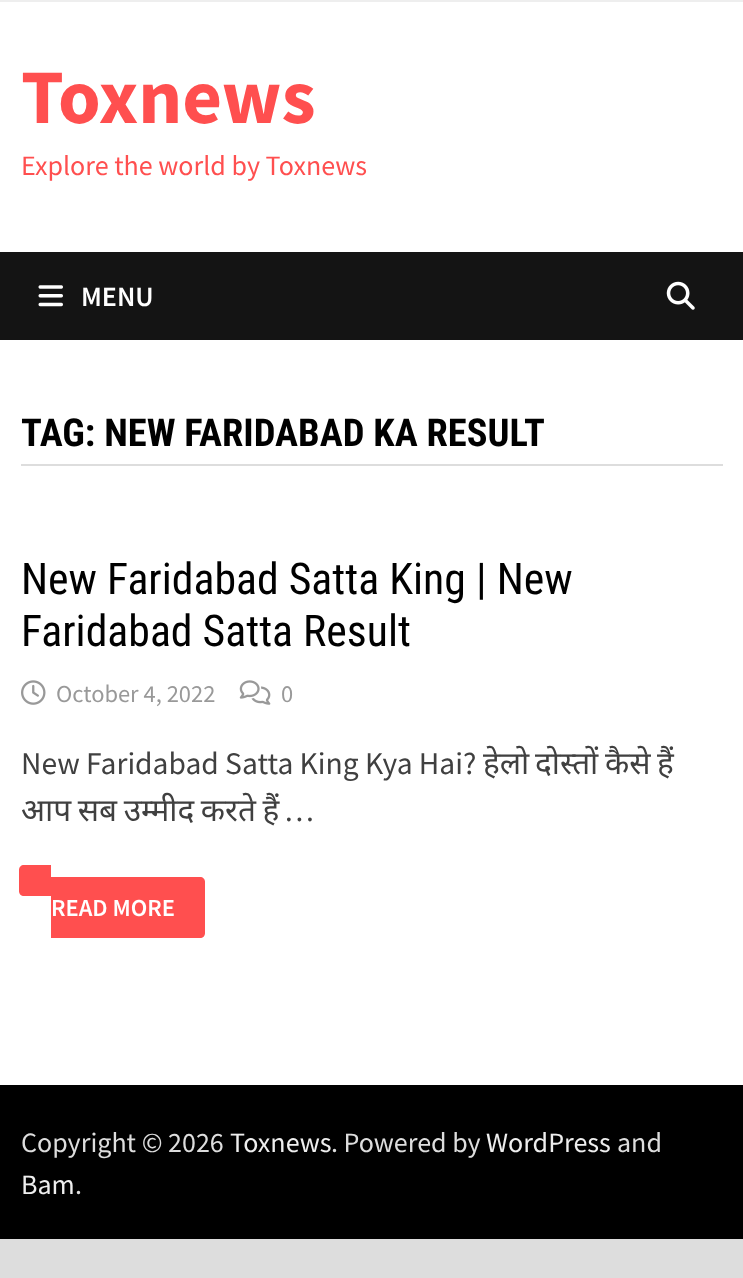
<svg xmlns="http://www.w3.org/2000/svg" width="743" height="1278">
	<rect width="100%" height="100%" fill="#DDDDDD" />
	<rect x="0" y="2" width="743" height="1083" fill="#FFFFFF" />
	<rect x="0" y="0" width="743" height="2" fill="#EEEEEE" />
	<text x="21" y="123" font-family="Source Sans Pro" font-size="77" font-weight="700" fill="#FF4F4F">Toxnews</text>
	<text x="21" y="175" font-family="Source Sans Pro" font-size="28" fill="#FF4F4F">Explore the world by Toxnews</text>
	<rect x="0" y="252" width="743" height="88" fill="#141414" />
	<image x="38" y="285" width="25" height="22" href="assets/img1.png" />
	<text x="81" y="306" font-family="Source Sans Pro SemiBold" font-size="28" font-weight="600" fill="#FFFFFF">MENU</text>
	<image x="666" y="281" width="29" height="29" href="assets/img2.png" />
	<rect x="21" y="464" width="702" height="2" fill="#DDDDDD" />
	<text x="21" y="446" font-family="Roboto Condensed" font-size="38.5" font-weight="700" fill="#000000">TAG: NEW FARIDABAD KA RESULT</text>
	<g font-family="Roboto Condensed" font-size="43.75" fill="#000000">
		<text x="21" y="594">New Faridabad Satta King | New</text>
		<text x="21" y="646">Faridabad Satta Result</text>
	</g>
	<image x="21" y="680" width="25" height="25" href="assets/img3.png" />
	<text x="56" y="702" font-family="Source Sans Pro" font-size="24.5" fill="#999999">October 4, 2022</text>
	<image x="239" y="680" width="32" height="25" href="assets/img4.png" />
	<text x="281" y="702" font-family="Source Sans Pro" font-size="24.5" fill="#999999">0</text>
	<text x="21" y="774" font-family="Source Sans Pro" font-size="31.5" fill="#404040">New Faridabad Satta King Kya Hai?</text>
	<g font-family="Noto Sans" font-size="31.5" fill="#404040">
		<text x="483" y="774">हेलो</text>
		<text x="535" y="774">दोस्तों</text>
		<text x="605" y="774">कैसे</text>
		<text x="657" y="774">हैं</text>
		<text x="21" y="821" word-spacing="-1.5">आप सब उम्मीद करते हैं</text>
	</g>
	<text x="284" y="821" font-family="Source Sans Pro" font-size="31.5" fill="#404040">…</text>
	<path d="M51 877H200C203 877 205 879 205 882V933C205 936 203 938 200 938H51Z" fill="#FF4F4F" />
	<text x="51" y="916" font-family="Source Sans Pro SemiBold" font-size="24.5" font-weight="600" fill="#FFFFFF">READ MORE</text>
	<path d="M24 865H51V896H24C21 896 19 894 19 891V870C19 867 21 865 24 865Z" fill="#FF4F4F" />
	<rect x="0" y="1085" width="743" height="154" fill="#000000" />
	<text x="21" y="1152" font-family="Source Sans Pro" font-size="28" fill="#DDDDDD">Copyright © 2026</text>
	<text x="230" y="1152" font-family="Source Sans Pro" font-size="28" fill="#EEEEEE">Toxnews</text>
	<text x="331" y="1152" font-family="Source Sans Pro" font-size="28" fill="#DDDDDD">. Powered by</text>
	<text x="486" y="1152" font-family="Source Sans Pro" font-size="28" fill="#EEEEEE">WordPress</text>
	<text x="617" y="1152" font-family="Source Sans Pro" font-size="28" fill="#DDDDDD">and</text>
	<text x="21" y="1194" font-family="Source Sans Pro" font-size="28" fill="#EEEEEE">Bam</text>
	<text x="75" y="1194" font-family="Source Sans Pro" font-size="28" fill="#DDDDDD">.</text>
</svg>
